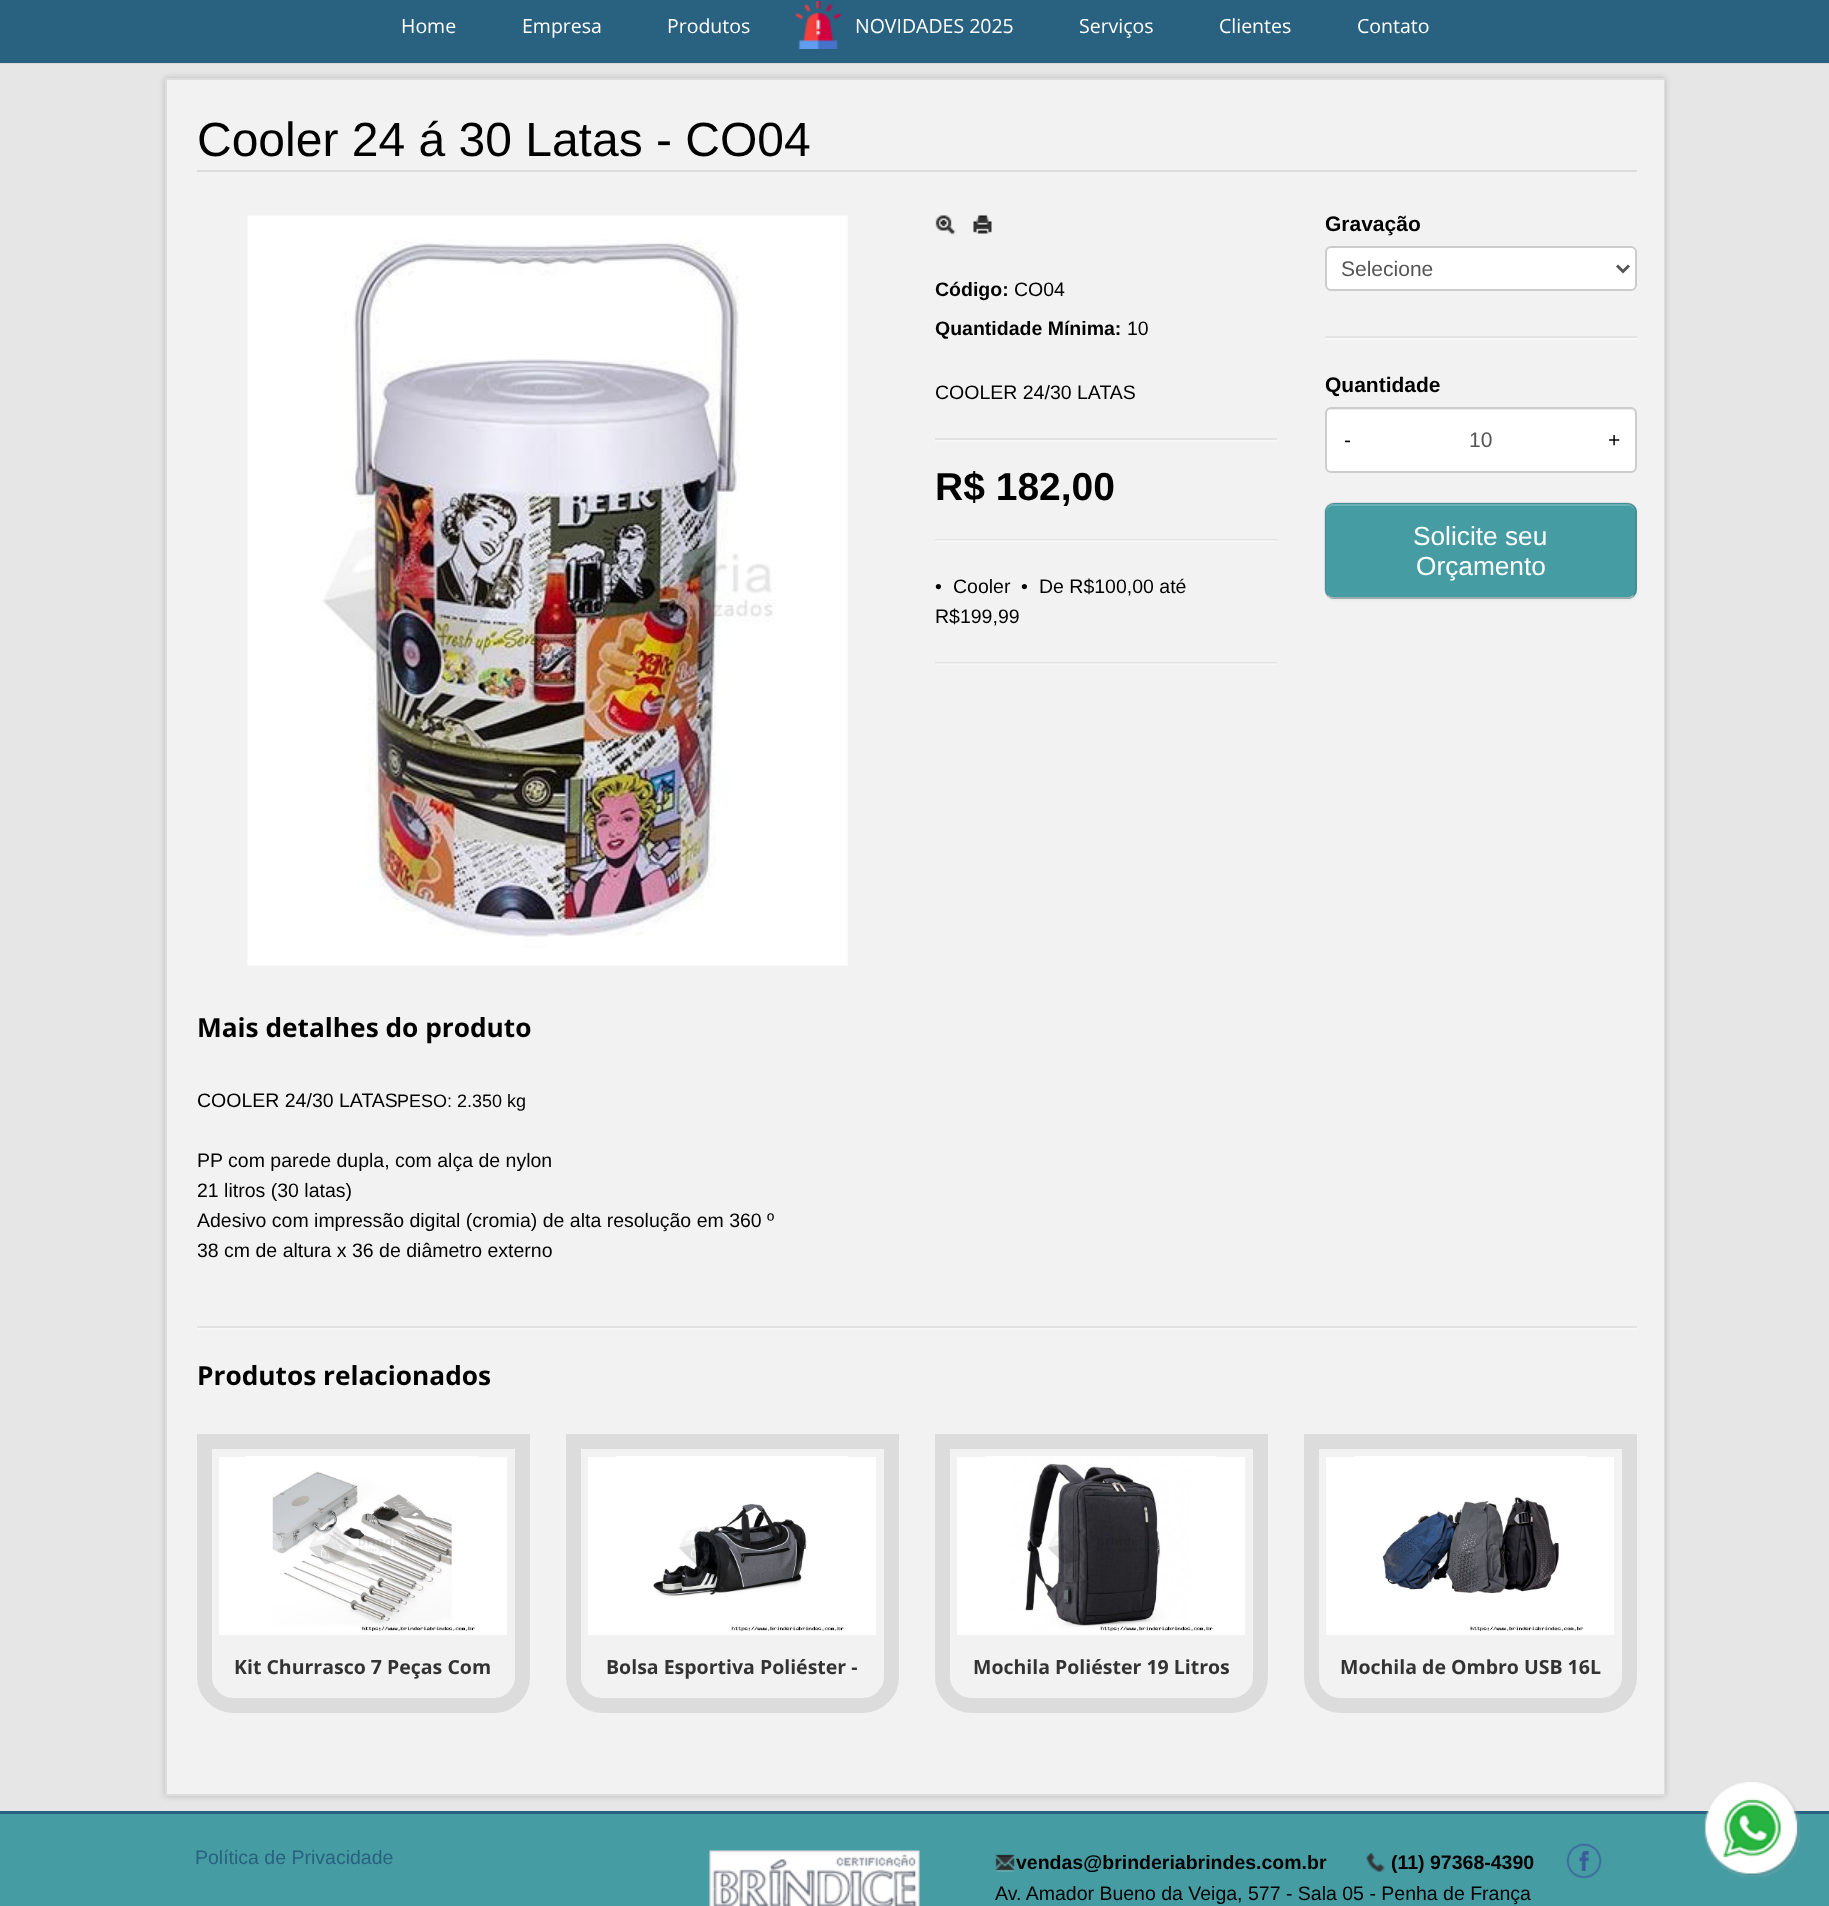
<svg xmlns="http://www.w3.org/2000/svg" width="1829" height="1906">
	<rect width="100%" height="100%" fill="#E6E6E6" />
	<rect x="0" y="63" width="1829" height="1" fill="#D8D8D8" />
	<rect x="0" y="0" width="1829" height="62" fill="#296181" />
	<rect x="0" y="62" width="1829" height="1" fill="#2E607D" />
	<g font-family="Open Sans" font-size="19.5" fill="#FFFFFF">
		<text x="401" y="33">Home</text>
		<text x="522" y="33">Empresa</text>
		<text x="667" y="33">Produtos</text>
	</g>
	<image x="795" y="1" width="47" height="48" href="assets/img1.png" />
	<g font-family="Open Sans" font-size="19.5" fill="#FFFFFF">
		<text x="855" y="33">NOVIDADES 2025</text>
		<text x="1079" y="33">Serviços</text>
		<text x="1219" y="33">Clientes</text>
		<text x="1357" y="33">Contato</text>
	</g>
	<rect x="165" y="78" width="1500" height="1718" fill="#000000" fill-opacity="0.2" filter="blur(3px)" />
	<rect x="166" y="79" width="1498" height="1716" fill="none" stroke="#DDDDDD" stroke-width="2" />
	<rect x="167" y="80" width="1497" height="1714" fill="#F2F2F2" />
	<rect x="935" y="664" width="342" height="1" fill="#F7F7F7" />
	<rect x="935" y="541" width="342" height="1" fill="#F7F7F7" />
	<rect x="197" y="170" width="1440" height="2" fill="#DCDCDC" />
	<text x="197" y="156" font-family="Liberation Sans" font-size="48" fill="#000000">Cooler 24 á 30 Latas - CO04</text>
	<image x="247" y="215" width="601" height="751" href="assets/img2.png" />
	<image x="935" y="215" width="21" height="20" href="assets/img3.png" />
	<image x="973" y="215" width="19" height="19" href="assets/img4.png" />
	<text x="935" y="296" font-family="Liberation Sans" font-size="19.5" font-weight="700" fill="#000000">Código:</text>
	<text x="1014" y="296" font-family="Liberation Sans" font-size="19.5" fill="#000000">CO04</text>
	<text x="935" y="335" font-family="Liberation Sans" font-size="19.5" font-weight="700" fill="#000000">Quantidade Mínima:</text>
	<g font-family="Liberation Sans" font-size="19.5" fill="#000000">
		<text x="1127" y="335">10</text>
		<text x="935" y="399">COOLER 24/30 LATAS</text>
	</g>
	<rect x="935" y="438" width="342" height="2" fill="#E3E3E3" />
	<rect x="935" y="440" width="342" height="2" fill="#F7F7F7" />
	<text x="935" y="500" font-family="Liberation Sans" font-size="39" font-weight="700" fill="#000000">R$ 182,00</text>
	<rect x="935" y="539" width="342" height="1" fill="#E3E3E3" />
	<rect x="935" y="540" width="342" height="1" fill="#EEEEEE" />
	<g font-family="Liberation Sans" font-size="19.5" fill="#000000">
		<text x="935" y="593">•</text>
		<text x="953" y="593">Cooler</text>
		<text x="1021" y="593">•</text>
		<text x="1039" y="593">De R$100,00 até</text>
		<text x="935" y="623">R$199,99</text>
	</g>
	<rect x="935" y="662" width="342" height="1" fill="#E3E3E3" />
	<rect x="935" y="663" width="342" height="1" fill="#EEEEEE" />
	<text x="1325" y="231" font-family="Liberation Sans" font-size="21" font-weight="700" fill="#000000">Gravação</text>
	<rect x="1326" y="247" width="310" height="43" rx="5" fill="#FFFFFF" stroke="#CCCCCC" stroke-width="2" />
	<path d="M1617 265.5L1623 271.5L1629 265.5" fill="none" stroke="#555555" stroke-width="3" />
	<text x="1341" y="276" font-family="Liberation Sans" font-size="21" fill="#555555">Selecione</text>
	<rect x="1325" y="336" width="312" height="2" fill="#E3E3E3" />
	<rect x="1325" y="338" width="312" height="2" fill="#F7F7F7" />
	<text x="1325" y="392" font-family="Liberation Sans" font-size="21" font-weight="700" fill="#000000">Quantidade</text>
	<rect x="1325" y="407" width="312" height="66" rx="6" fill="#FFFFFF" />
	<path d="M1330 410H1630C1633 410 1635 412 1635 414C1635 411 1633 408 1630 408H1331C1328 408 1326 411 1326 414C1326 412 1328 410 1330 410Z" fill="#ECECEC" />
	<rect x="1326" y="408" width="310" height="64" rx="5" fill="none" stroke="#CCCCCC" stroke-width="2" />
	<text x="1344" y="447" font-family="Liberation Sans" font-size="21" fill="#000000">-</text>
	<text x="1469" y="447" font-family="Liberation Sans" font-size="21" fill="#555555">10</text>
	<text x="1608" y="447" font-family="Liberation Sans" font-size="21" fill="#000000">+</text>
	<rect x="1325" y="504" width="312" height="96" rx="9" fill="#000000" fill-opacity="0.05" filter="blur(1.5px)" />
	<rect x="1325" y="503" width="312" height="96" rx="9" fill="#469CA3" />
	<path d="M1334 506H1628C1632 506 1635 509 1635 513C1635 508 1632 504 1627 504H1332C1328 505 1326 509 1326 513C1326 509 1329 506 1334 506Z" fill="#6BB0B5" />
	<path d="M1633.5 595.5C1632 597 1629.5 598 1627.5 598H1333.5C1331.5 598 1329 597 1327.5 595.5" fill="none" stroke="#B3B3B3" stroke-width="1.5" />
	<path d="M1327.5 595.5C1326 594 1325 591.5 1325 589.5V511.5C1325 509.5 1326 507 1327.5 505.5C1329 504 1331.5 503 1333.5 503H1627.5C1629.5 503 1632 504 1633.5 505.5C1635 507 1636 509.5 1636 511.5V589.5C1636 591.5 1635 594 1633.5 595.5" fill="none" stroke="#000000" stroke-opacity="0.1" stroke-width="1.5" />
	<g font-family="Liberation Sans" font-size="26.25" fill="#FFFFFF">
		<text x="1413" y="545">Solicite seu</text>
		<text x="1416" y="575">Orçamento</text>
	</g>
	<text x="197" y="1037" font-family="Open Sans" font-size="26.25" font-weight="700" fill="#000000">Mais detalhes do produto</text>
	<text x="197" y="1107" font-family="Liberation Sans" font-size="19.5" fill="#000000">COOLER 24/30 LATAS</text>
	<text x="397" y="1107" font-family="Liberation Sans" font-size="18" fill="#000000">PESO: 2.350 kg</text>
	<g font-family="Liberation Sans" font-size="19.5" fill="#000000">
		<text x="197" y="1167">PP com parede dupla, com alça de nylon</text>
		<text x="197" y="1197">21 litros (30 latas)</text>
		<text x="197" y="1227">Adesivo com impressão digital (cromia) de alta resolução em 360 º</text>
		<text x="197" y="1257">38 cm de altura x 36 de diâmetro externo</text>
	</g>
	<rect x="197" y="1326" width="1440" height="2" fill="#E3E3E3" />
	<rect x="197" y="1328" width="1440" height="2" fill="#F7F7F7" />
	<text x="197" y="1385" font-family="Open Sans" font-size="26.25" font-weight="700" fill="#000000">Produtos relacionados</text>
	<path d="M204.5 1441.5H522.5V1677C522.5 1692.5 509.5 1705.5 494 1705.5H233C217.5 1705.5 204.5 1692.5 204.5 1677Z" fill="none" stroke="#DCDCDC" stroke-width="15" />
	<rect x="219" y="1457" width="288" height="178" fill="#FFFFFF" />
	<image x="246" y="1456" width="233" height="177" href="assets/img5.png" />
	<text x="234" y="1674" font-family="Open Sans" font-size="19.5" font-weight="700" fill="#333333">Kit Churrasco 7 Peças Com</text>
	<path d="M573.5 1441.5H891.5V1677C891.5 1692.5 878.5 1705.5 863 1705.5H602C586.5 1705.5 573.5 1692.5 573.5 1677Z" fill="none" stroke="#DCDCDC" stroke-width="15" />
	<rect x="588" y="1457" width="288" height="178" fill="#FFFFFF" />
	<image x="616" y="1456" width="232" height="175" href="assets/img6.png" />
	<text x="606" y="1674" font-family="Open Sans" font-size="19.5" font-weight="700" fill="#333333">Bolsa Esportiva Poliéster -</text>
	<path d="M942.5 1441.5H1260.5V1677C1260.5 1692.5 1247.5 1705.5 1232 1705.5H971C955.5 1705.5 942.5 1692.5 942.5 1677Z" fill="none" stroke="#DCDCDC" stroke-width="15" />
	<rect x="957" y="1457" width="288" height="178" fill="#FFFFFF" />
	<image x="985" y="1456" width="232" height="175" href="assets/img7.png" />
	<text x="973" y="1674" font-family="Open Sans" font-size="19.5" font-weight="700" fill="#333333">Mochila Poliéster 19 Litros</text>
	<path d="M1311.5 1441.5H1629.5V1677C1629.5 1692.5 1616.5 1705.5 1601 1705.5H1340C1324.5 1705.5 1311.5 1692.5 1311.5 1677Z" fill="none" stroke="#DCDCDC" stroke-width="15" />
	<rect x="1326" y="1457" width="288" height="178" fill="#FFFFFF" />
	<image x="1354" y="1456" width="233" height="175" href="assets/img8.png" />
	<text x="1340" y="1674" font-family="Open Sans" font-size="19.5" font-weight="700" fill="#333333">Mochila de Ombro USB 16L</text>
	<rect x="0" y="1814" width="1829" height="92" fill="#469CA3" />
	<rect x="0" y="1811" width="1829" height="3" fill="#296181" />
	<text x="195" y="1864" font-family="Liberation Sans" font-size="19.5" fill="#296181">Política de Privacidade</text>
	<image x="709" y="1850" width="211" height="56" href="assets/img9.png" />
	<image x="995" y="1854" width="20" height="18" href="assets/img10.png" />
	<text x="1016" y="1869" font-family="Liberation Sans" font-size="19.5" font-weight="700" fill="#000000">vendas@brinderiabrindes.com.br</text>
	<image x="1366" y="1853" width="19" height="19" href="assets/img11.png" />
	<text x="1391" y="1869" font-family="Liberation Sans" font-size="19.5" font-weight="700" fill="#000000">(11) 97368-4390</text>
	<image x="1566" y="1843" width="36" height="36" href="assets/img12.png" />
	<text x="995" y="1900" font-family="Liberation Sans" font-size="19.5" fill="#000000">Av. Amador Bueno da Veiga, 577 - Sala 05 - Penha de França</text>
	<image x="1704" y="1782" width="96" height="95" href="assets/img13.png" />
</svg>
